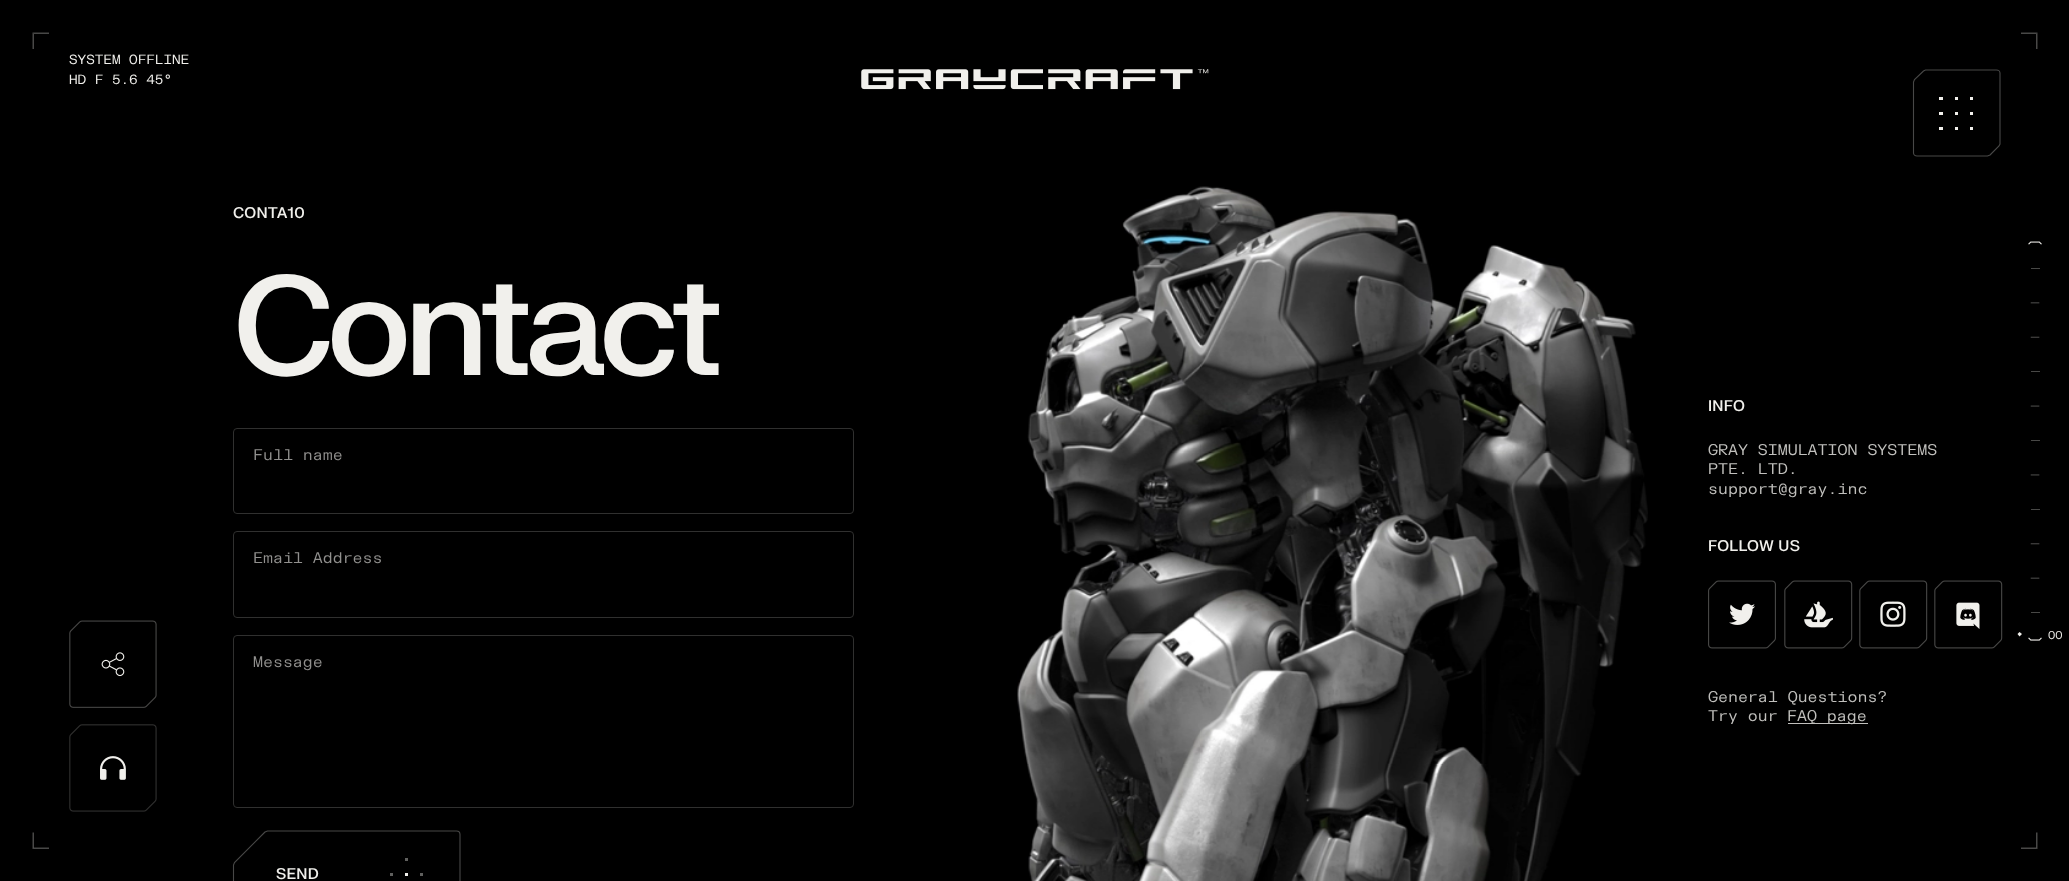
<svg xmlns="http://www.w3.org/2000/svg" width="2069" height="881">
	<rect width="100%" height="100%" fill="#000000" />
	<path d="M32.5 32.5H49V34H34Z" fill="#484847" />
	<path d="M32.5 49V32.5L34 34V49Z" fill="#F1F0EC" fill-opacity="0.3" />
	<path d="M2021 32.5H2037.5L2036 34H2021Z" fill="#484847" />
	<path d="M2037.5 32.5V49H2036V34Z" fill="#F1F0EC" fill-opacity="0.3" />
	<path d="M49 849H32.5L34 847.5H49Z" fill="#484847" />
	<path d="M32.5 849V832.5H34V847.5Z" fill="#F1F0EC" fill-opacity="0.3" />
	<path d="M2037.5 832.5V849L2036 847.5V832.5Z" fill="#484847" />
	<path d="M2037.5 849H2021V847.5H2036Z" fill="#F1F0EC" fill-opacity="0.3" />
	<g font-family="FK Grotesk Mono" font-size="13" fill="#F1F0EC">
		<text x="69" y="64">SYSTEM OFFLINE</text>
		<text x="69" y="84">HD F 5.6 45°</text>
	</g>
	<image x="861" y="69" width="348" height="21" href="assets/img1.png" />
	<path d="M1990 155L1999 146L2000 144V73C2000 71.5 1998.5 70 1996.5 70H1925.5L1923.5 71L1914.5 79.5L1913.5 82V153C1913.5 154.5 1915 156 1917 156H1987.5Z" fill="none" stroke="#484847" stroke-width="1.1" />
	<rect x="1939" y="112" width="4" height="3" fill="#F1F0EC" />
	<rect x="1970" y="112" width="3" height="3" fill="#F1F0EC" />
	<rect x="1970" y="127" width="3" height="3" fill="#F1F0EC" />
	<rect x="1970" y="97" width="3" height="3" fill="#F1F0EC" />
	<rect x="1939" y="97" width="4" height="3" fill="#F1F0EC" />
	<rect x="1939" y="127" width="4" height="3" fill="#F1F0EC" />
	<rect x="1955" y="127" width="3" height="3" fill="#F1F0EC" />
	<rect x="1955" y="97" width="3" height="3" fill="#F1F0EC" />
	<rect x="1955" y="112" width="3" height="3" fill="#F1F0EC" />
	<image x="69" y="620" width="88" height="88" href="assets/img2.png" />
	<text x="233" y="218" font-family="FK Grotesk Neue" font-size="15.1" font-weight="500" letter-spacing="0.25" fill="#F1F0EC">CONTA10</text>
	<text x="233" y="375" font-family="FK Grotesk Neue" font-size="138" font-weight="500" letter-spacing="-7" fill="#F1F0EC">Contact</text>
	<rect x="233.5" y="428.5" width="620" height="85" rx="3.5" fill="none" stroke="#30302F" />
	<text x="253" y="460" font-family="FK Grotesk Mono" font-size="15.1" fill="#91908E">Full name</text>
	<rect x="233.5" y="531.5" width="620" height="86" rx="3.5" fill="none" stroke="#30302F" />
	<text x="253" y="563" font-family="FK Grotesk Mono" font-size="15.1" fill="#91908E">Email Address</text>
	<rect x="233.5" y="635.5" width="620" height="172" rx="3.5" fill="none" stroke="#30302F" />
	<text x="253" y="667" font-family="FK Grotesk Mono" font-size="15.1" fill="#91908E">Message</text>
	<path d="M265 832L234.5 862.5L233.5 865V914C233.5 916 235 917.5 237 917.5H426.5L428.5 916.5L459 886L460 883.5V834.5C460 832.5 458.5 831 456.5 831H267.5Z" fill="none" stroke="#484847" stroke-width="1.1" />
	<text x="276" y="879" font-family="FK Grotesk Neue" font-size="15.1" font-weight="500" letter-spacing="0.25" fill="#F1F0EC">SEND</text>
	<rect x="390" y="873" width="3" height="3" fill="#60605E" />
	<rect x="420" y="873" width="3" height="3" fill="#60605E" />
	<rect x="405" y="858" width="3" height="3" fill="#60605E" />
	<rect x="405" y="873" width="3" height="3" fill="#F1F0EC" />
	<image x="1017" y="186" width="631" height="695" href="assets/img3.png" />
	<text x="1708" y="411" font-family="FK Grotesk Neue" font-size="15.1" font-weight="500" letter-spacing="0.25" fill="#F1F0EC">INFO</text>
	<g font-family="FK Grotesk Mono" font-size="15.1" fill="#C1C0BD">
		<text x="1708" y="455">GRAY SIMULATION SYSTEMS</text>
		<text x="1708" y="474">PTE. LTD.</text>
		<text x="1708" y="494">support@gray.inc</text>
	</g>
	<text x="1708" y="551" font-family="FK Grotesk Neue" font-size="15.1" font-weight="500" letter-spacing="0.25" fill="#F1F0EC">FOLLOW US</text>
	<image x="1708" y="580" width="68" height="69" href="assets/img4.png" />
	<image x="1784" y="580" width="69" height="69" href="assets/img5.png" />
	<image x="1859" y="580" width="69" height="69" href="assets/img6.png" />
	<image x="1934" y="580" width="69" height="69" href="assets/img7.png" />
	<g font-family="FK Grotesk Mono" font-size="15.1" fill="#C1C0BD">
		<text x="1708" y="702">General Questions?</text>
		<text x="1708" y="721">Try our</text>
	</g>
	<rect x="1788" y="723" width="80" height="1" fill="#C1C0BD" />
	<text x="1787" y="721" font-family="FK Grotesk Mono" font-size="15.1" fill="#C1C0BD">FAQ page</text>
	<image x="2028" y="241" width="14" height="400" href="assets/img8.png" />
	<path d="M2019.5 632L2022 634L2019.5 636.5L2017.5 634Z" fill="#F1F0EC" />
	<text x="2048" y="639" font-family="FK Grotesk Mono" font-size="11" fill="#F1F0EC">00</text>
	<image x="69" y="724" width="88" height="88" href="assets/img9.png" />
</svg>
